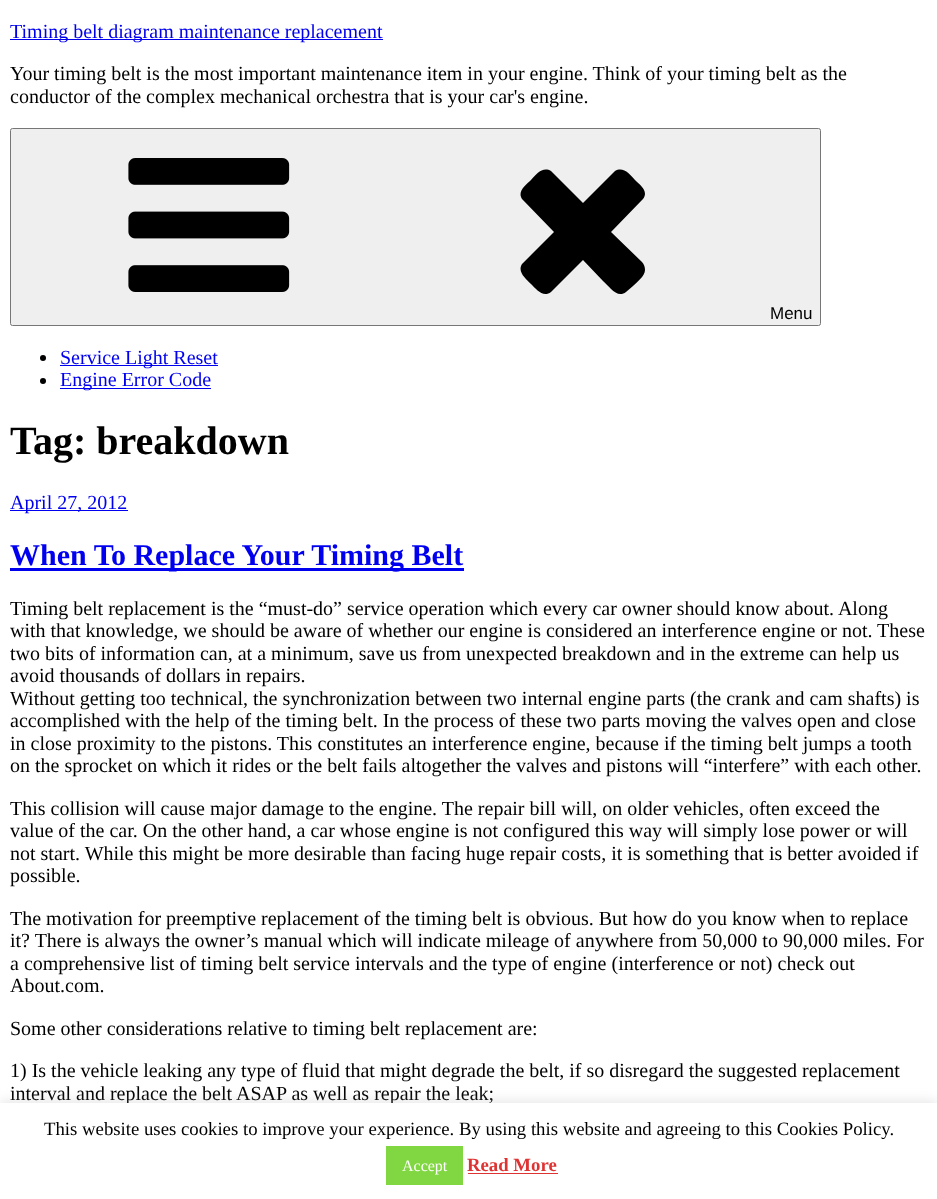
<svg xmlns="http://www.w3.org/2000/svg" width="937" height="1199">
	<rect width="100%" height="100%" fill="#FFFFFF" />
	<rect x="10" y="39" width="373" height="1" fill="#0000EE" />
	<text x="10" y="38" font-family="Liberation Serif" font-size="20" fill="#0000EE">Timing belt diagram maintenance replacement</text>
	<g font-family="Liberation Serif" font-size="20" fill="#000000">
		<text x="10" y="80">Your timing belt is the most important maintenance item in your engine. Think of your timing belt as the</text>
		<text x="10" y="103">conductor of the complex mechanical orchestra that is your car's engine.</text>
	</g>
	<rect x="10.5" y="128.5" width="810" height="197" rx="2" fill="#EFEFEF" stroke="#767676" />
	<image x="128" y="158" width="162" height="134" href="assets/img1.png" />
	<path d="M645 270C645 276 637 282 633 286L626 292C617 299 609 286 603 281L583 260L551 292C543 298 536 289 531 284C526 279 517 272 522 264L554 232L522 199C517 191 526 185 531 180C536 174 543 166 551 171L583 203L615 171C623 166 630 174 635 180C640 185 649 191 643 199L611 232L642 262C644 264 645 267 645 270Z" fill="#000000" />
	<text x="770" y="319" font-family="Liberation Sans" font-size="17" fill="#000000">Menu</text>
	<circle cx="43" cy="358" r="3" fill="#000000" />
	<rect x="60" y="365" width="158" height="1" fill="#0000EE" />
	<text x="60" y="364" font-family="Liberation Serif" font-size="20" fill="#0000EE">Service Light Reset</text>
	<circle cx="43" cy="381" r="3" fill="#000000" />
	<rect x="60" y="388" width="151" height="1" fill="#0000EE" />
	<text x="60" y="386" font-family="Liberation Serif" font-size="20" fill="#0000EE">Engine Error Code</text>
	<text x="10" y="454" font-family="Liberation Serif" font-size="40" font-weight="700" fill="#000000">Tag: breakdown</text>
	<rect x="10" y="510" width="118" height="1" fill="#0000EE" />
	<text x="10" y="509" font-family="Liberation Serif" font-size="20" fill="#0000EE">April 27, 2012</text>
	<rect x="10" y="568" width="454" height="3" fill="#0000EE" />
	<text x="10" y="565" font-family="Liberation Serif" font-size="30" font-weight="700" fill="#0000EE">When To Replace Your Timing Belt</text>
	<g font-family="Liberation Serif" font-size="20" fill="#000000">
		<text x="10" y="615">Timing belt replacement is the “must-do” service operation which every car owner should know about. Along</text>
		<text x="10" y="637">with that knowledge, we should be aware of whether our engine is considered an interference engine or not. These</text>
		<text x="10" y="660">two bits of information can, at a minimum, save us from unexpected breakdown and in the extreme can help us</text>
		<text x="10" y="682">avoid thousands of dollars in repairs.</text>
		<text x="10" y="705">Without getting too technical, the synchronization between two internal engine parts (the crank and cam shafts) is</text>
		<text x="10" y="727">accomplished with the help of the timing belt. In the process of these two parts moving the valves open and close</text>
		<text x="10" y="750">in close proximity to the pistons. This constitutes an interference engine, because if the timing belt jumps a tooth</text>
		<text x="10" y="772">on the sprocket on which it rides or the belt fails altogether the valves and pistons will “interfere” with each other.</text>
		<text x="10" y="815">This collision will cause major damage to the engine. The repair bill will, on older vehicles, often exceed the</text>
		<text x="10" y="837">value of the car. On the other hand, a car whose engine is not configured this way will simply lose power or will</text>
		<text x="10" y="860">not start. While this might be more desirable than facing huge repair costs, it is something that is better avoided if</text>
		<text x="10" y="882">possible.</text>
		<text x="10" y="925">The motivation for preemptive replacement of the timing belt is obvious. But how do you know when to replace</text>
		<text x="10" y="947">it? There is always the owner’s manual which will indicate mileage of anywhere from 50,000 to 90,000 miles. For</text>
		<text x="10" y="970">a comprehensive list of timing belt service intervals and the type of engine (interference or not) check out</text>
		<text x="10" y="992">About.com.</text>
		<text x="10" y="1035">Some other considerations relative to timing belt replacement are:</text>
		<text x="10" y="1077">1) Is the vehicle leaking any type of fluid that might degrade the belt, if so disregard the suggested replacement</text>
		<text x="10" y="1100">interval and replace the belt ASAP as well as repair the leak;</text>
	</g>
	<rect x="0" y="1101" width="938" height="98" fill="#ACABAB" fill-opacity="0.3" filter="blur(6px)" />
	<rect x="0" y="1103" width="937" height="96" fill="#FFFFFF" />
	<text x="44" y="1135" font-family="Liberation Serif" font-size="18.75" fill="#000000">This website uses cookies to improve your experience. By using this website and agreeing to this Cookies Policy.</text>
	<rect x="386" y="1146" width="77" height="39" fill="#81D742" />
	<text x="402" y="1171" font-family="Liberation Serif" font-size="16" fill="#FFFFFF">Accept</text>
	<text x="467" y="1171" font-family="Liberation Serif" font-size="18.75" font-weight="700" fill="#DD3333">Read More</text>
	<rect x="468" y="1173" width="90" height="1" fill="#DD3333" />
</svg>
